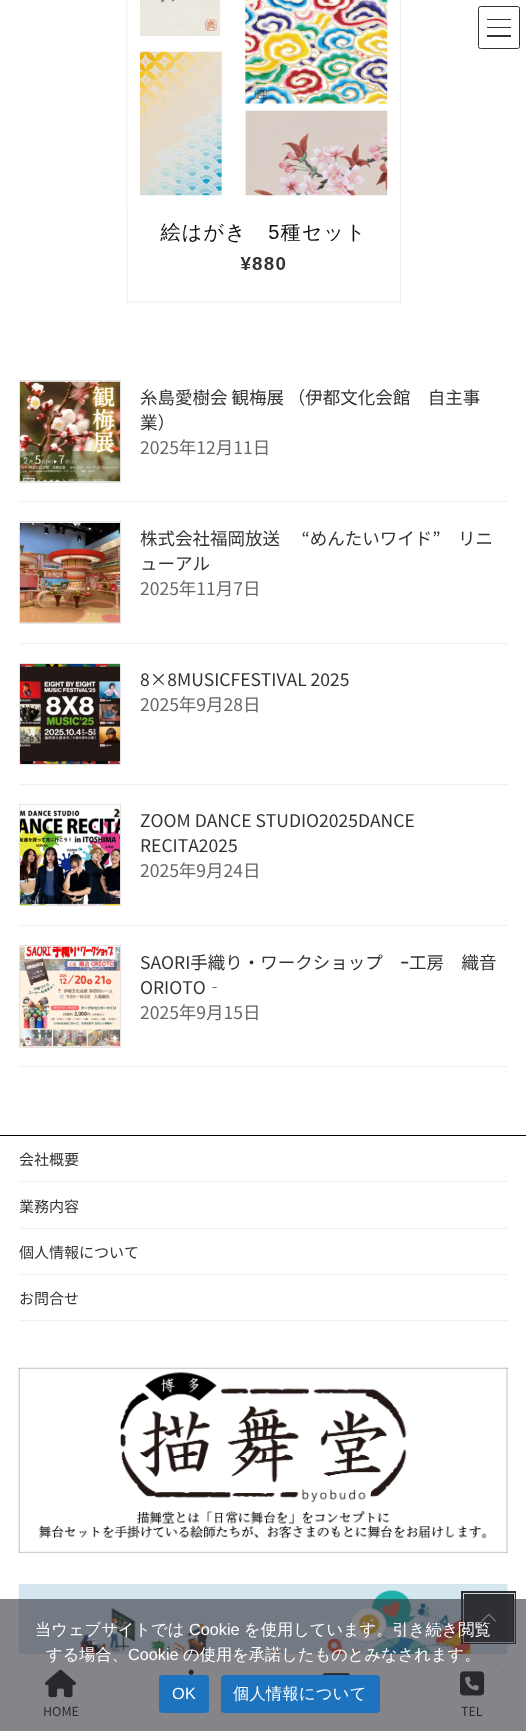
<svg xmlns="http://www.w3.org/2000/svg" width="526" height="1731">
	<style>*{font-kerning:none!important;font-variant-ligatures:none!important}</style>
	<rect width="100%" height="100%" fill="#FFFFFF" />
	<rect x="487" y="19" width="24" height="1" fill="#333333" />
	<rect x="487" y="27" width="24" height="1" fill="#333333" />
	<rect x="487" y="35" width="24" height="2" fill="#333333" />
	<rect x="478.5" y="6.5" width="41" height="42" rx="2" fill="none" stroke="#333333" />
	<image x="126" y="0" width="275" height="303" href="assets/img1.png" />
	<rect x="19" y="501" width="489" height="1" fill="#F0F0F0" />
	<rect x="19.5" y="380.5" width="101" height="102" fill="none" stroke="#E5E5E5" />
	<image x="20" y="381" width="100" height="101" href="assets/img2.png" />
	<g font-family="Noto Sans JP" font-size="17.5" fill="#333333">
		<text x="140" y="404">糸島愛樹会 観梅展 （伊都文化会館　自主事</text>
		<text x="140" y="429">業）</text>
	</g>
	<text x="140" y="454" font-family="Noto Sans JP" font-size="17.5" fill="#666666">2025年12月11日</text>
	<rect x="19" y="643" width="489" height="1" fill="#F0F0F0" />
	<rect x="19.5" y="521.5" width="101" height="102" fill="none" stroke="#E5E5E5" />
	<image x="20" y="522" width="100" height="101" href="assets/img3.png" />
	<g font-family="Noto Sans JP" font-size="17.5" fill="#333333">
		<text x="140" y="545">株式会社福岡放送　 “めんたいワイド”　リニ</text>
		<text x="140" y="570">ューアル</text>
	</g>
	<text x="140" y="595" font-family="Noto Sans JP" font-size="17.5" fill="#666666">2025年11月7日</text>
	<rect x="19" y="784" width="489" height="1" fill="#F0F0F0" />
	<rect x="19.5" y="663.5" width="101" height="101" fill="none" stroke="#E5E5E5" />
	<image x="20" y="664" width="100" height="100" href="assets/img4.png" />
	<text x="140" y="686" font-family="Noto Sans JP" font-size="17.5" fill="#333333">8×8MUSICFESTIVAL 2025</text>
	<text x="140" y="711" font-family="Noto Sans JP" font-size="17.5" fill="#666666">2025年9月28日</text>
	<rect x="19" y="925" width="489" height="1" fill="#F0F0F0" />
	<rect x="19.5" y="804.5" width="101" height="101" fill="none" stroke="#E5E5E5" />
	<image x="20" y="808" width="100" height="98" href="assets/img5.png" />
	<g font-family="Noto Sans JP" font-size="17.5" fill="#333333">
		<text x="140" y="827">ZOOM DANCE STUDIO2025DANCE</text>
		<text x="140" y="852">RECITA2025</text>
	</g>
	<text x="140" y="877" font-family="Noto Sans JP" font-size="17.5" fill="#666666">2025年9月24日</text>
	<rect x="19" y="1066" width="489" height="1" fill="#F0F0F0" />
	<rect x="19.5" y="945.5" width="101" height="102" fill="none" stroke="#E5E5E5" />
	<image x="20" y="946" width="100" height="101" href="assets/img6.png" />
	<g font-family="Noto Sans JP" font-size="17.5" fill="#333333">
		<text x="140" y="969">SAORI手織り・ワークショップ　ｰ工房　織音</text>
		<text x="140" y="994">ORIOTO‐</text>
	</g>
	<text x="140" y="1019" font-family="Noto Sans JP" font-size="17.5" fill="#666666">2025年9月15日</text>
	<rect x="0" y="1135" width="526" height="1" fill="#000000" />
	<rect x="19" y="1181" width="489" height="1" fill="#F0F0F0" />
	<text x="19" y="1165" font-family="Noto Sans JP" font-size="15" fill="#333333">会社概要</text>
	<rect x="19" y="1228" width="489" height="1" fill="#F0F0F0" />
	<text x="19" y="1212" font-family="Noto Sans JP" font-size="15" fill="#333333">業務内容</text>
	<rect x="19" y="1274" width="489" height="1" fill="#F0F0F0" />
	<text x="19" y="1258" font-family="Noto Sans JP" font-size="15" fill="#333333">個人情報について</text>
	<rect x="19" y="1320" width="489" height="1" fill="#F0F0F0" />
	<text x="19" y="1304" font-family="Noto Sans JP" font-size="15" fill="#333333">お問合せ</text>
	<image x="18" y="1367" width="490" height="186" href="assets/img7.png" />
	<image x="18" y="1584" width="490" height="70" href="assets/img8.png" />
	<rect x="462.5" y="1592.5" width="52" height="50" fill="none" stroke="#000000" stroke-opacity="0.8" stroke-width="3" />
	<rect x="463.5" y="1593.5" width="51" height="49" fill="none" stroke="#FFFFFF" stroke-opacity="0.8" />
	<rect x="464" y="1594" width="50" height="47" fill="#000000" fill-opacity="0.8" />
	<image x="481" y="1613" width="15" height="9" href="assets/img9.png" />
	<image x="188" y="1669" width="6" height="6" href="assets/img10.png" />
	<image x="322" y="1673" width="28" height="2" href="assets/img11.png" />
	<image x="45" y="1669" width="31" height="29" href="assets/img12.png" />
	<text x="43" y="1716" font-family="Noto Sans JP" font-size="12.5" fill="#1A1A1A">HOME</text>
	<image x="460" y="1671" width="25" height="25" href="assets/img13.png" />
	<text x="461" y="1716" font-family="Noto Sans JP" font-size="12.5" fill="#1A1A1A">TEL</text>
	<rect x="0" y="1599" width="526" height="132" fill="#32323A" fill-opacity="0.6" />
	<text x="35" y="1635" font-family="WenQuanYi Zen Hei" font-size="16.25" font-weight="500" fill="#FFFFFF">当ウェブサイトでは</text>
	<text x="189" y="1635" font-family="Liberation Sans" font-size="16.25" fill="#FFFFFF">Cookie</text>
	<g font-family="WenQuanYi Zen Hei" font-size="16.25" font-weight="500" fill="#FFFFFF">
		<text x="244" y="1635">を使用しています。引き続き閲覧</text>
		<text x="46" y="1660">する場合、</text>
	</g>
	<text x="128" y="1660" font-family="Liberation Sans" font-size="16.25" fill="#FFFFFF">Cookie</text>
	<text x="183" y="1660" font-family="WenQuanYi Zen Hei" font-size="16.25" font-weight="500" fill="#FFFFFF">の使用を承諾したものとみなされます。</text>
	<path d="M502 1658L504 1660L490.5 1673L488.5 1671.5Z" fill="#828284" />
	<path d="M488.5 1660L490.5 1658L504 1671.5L502 1673Z" fill="#828284" />
	<rect x="159" y="1675" width="50" height="38" rx="4" fill="#1E73BE" />
	<text x="172" y="1699" font-family="Liberation Sans" font-size="16.25" letter-spacing="0.25" fill="#FFFFFF">OK</text>
	<rect x="221" y="1675" width="159" height="38" rx="4" fill="#1E73BE" />
	<text x="233" y="1699" font-family="WenQuanYi Zen Hei" font-size="16.25" font-weight="500" letter-spacing="0.25" fill="#FFFFFF">個人情報について</text>
</svg>
